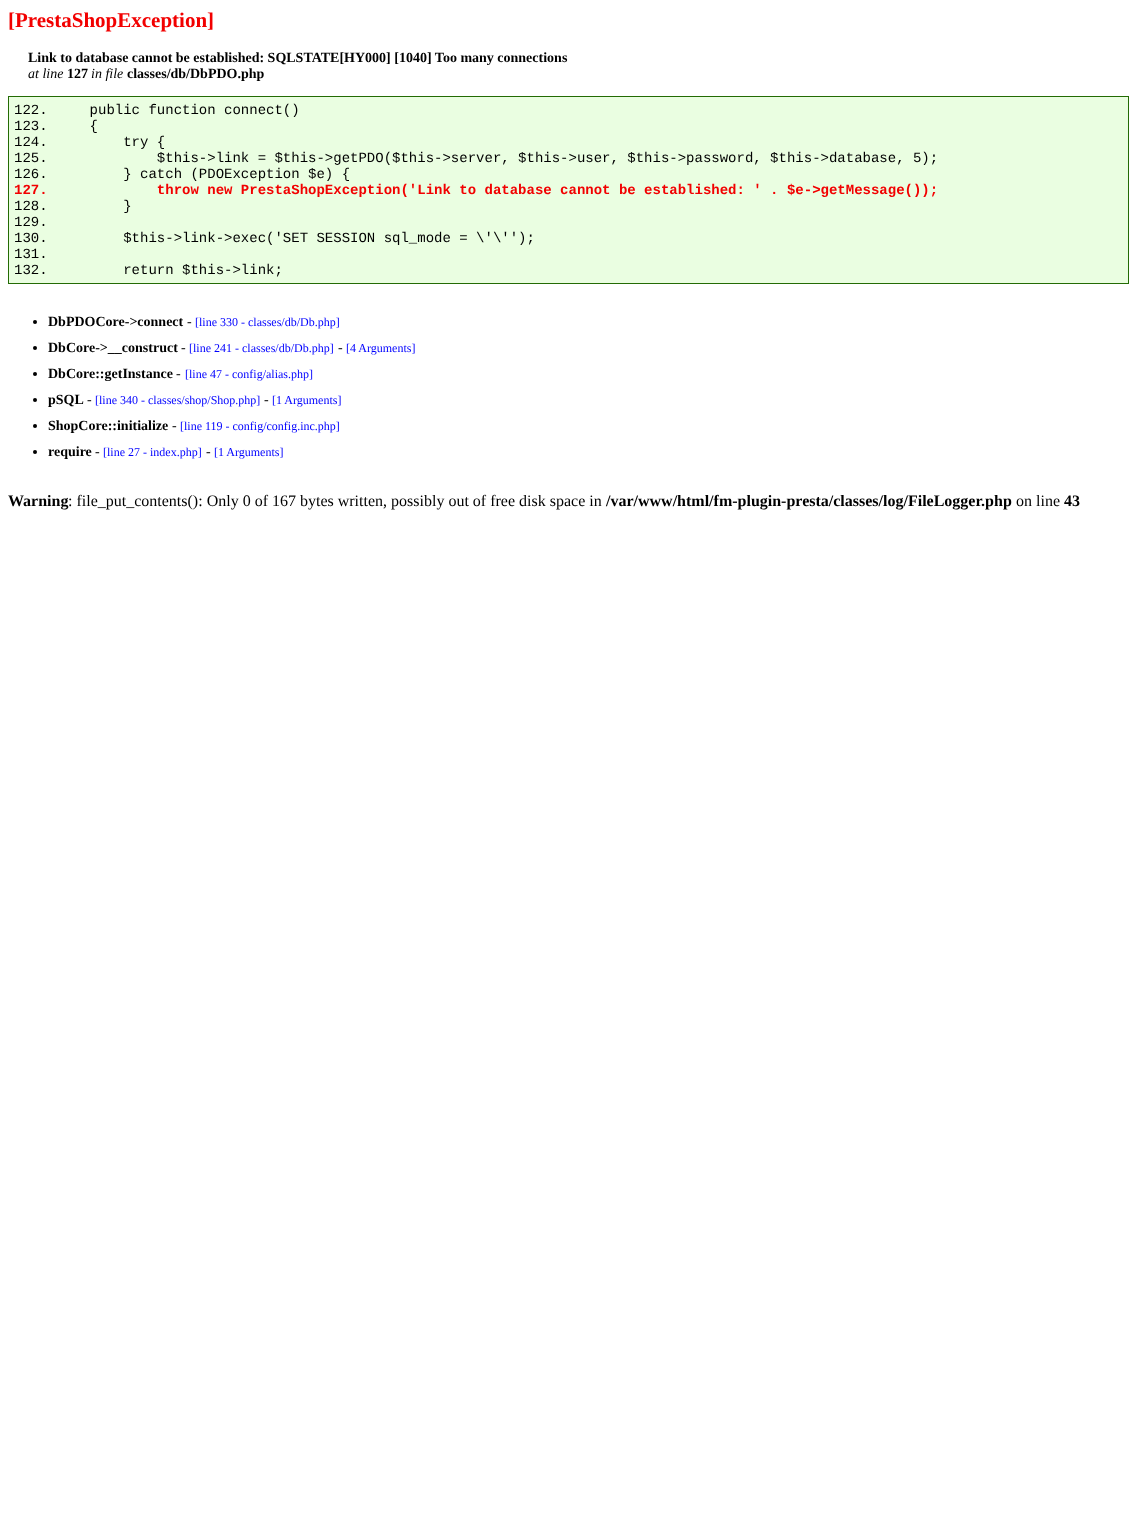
<svg xmlns="http://www.w3.org/2000/svg" width="1136" height="1527">
	<rect width="100%" height="100%" fill="#FFFFFF" />
	<text x="8" y="27" font-family="Liberation Serif" font-size="21" font-weight="700" fill="#F20000">[PrestaShopException]</text>
	<text x="28" y="62" font-family="Liberation Serif" font-size="14" font-weight="700" fill="#000000">Link to database cannot be established: SQLSTATE[HY000] [1040] Too many connections</text>
	<text x="28" y="78" font-family="Liberation Serif" font-size="14" font-style="italic" fill="#000000">at line</text>
	<text x="67" y="78" font-family="Liberation Serif" font-size="14" font-weight="700" fill="#000000">127</text>
	<text x="91" y="78" font-family="Liberation Serif" font-size="14" font-style="italic" fill="#000000">in file</text>
	<text x="127" y="78" font-family="Liberation Serif" font-size="14" font-weight="700" fill="#000000">classes/db/DbPDO.php</text>
	<rect x="8.5" y="96.5" width="1120" height="187" fill="#EAFEE1" stroke="#236B04" />
	<g font-family="Liberation Mono" font-size="14" fill="#000000">
		<text x="14" y="114" xml:space="preserve">122.     public function connect()</text>
		<text x="14" y="130" xml:space="preserve">123.     {</text>
		<text x="14" y="146" xml:space="preserve">124.         try {</text>
		<text x="14" y="162" xml:space="preserve">125.             $this-&gt;link = $this-&gt;getPDO($this-&gt;server, $this-&gt;user, $this-&gt;password, $this-&gt;database, 5);</text>
		<text x="14" y="178" xml:space="preserve">126.         } catch (PDOException $e) {</text>
	</g>
	<text x="14" y="194" font-family="Liberation Mono" font-size="14" font-weight="700" fill="#F20000" xml:space="preserve">127.             throw new PrestaShopException('Link to database cannot be established: ' . $e-&gt;getMessage());</text>
	<g font-family="Liberation Mono" font-size="14" fill="#000000">
		<text x="14" y="210" xml:space="preserve">128.         }</text>
		<text x="14" y="226">129.</text>
		<text x="14" y="242" xml:space="preserve">130.         $this-&gt;link-&gt;exec('SET SESSION sql_mode = \'\'');</text>
		<text x="14" y="258">131.</text>
		<text x="14" y="274" xml:space="preserve">132.         return $this-&gt;link;</text>
	</g>
	<circle cx="35" cy="322" r="2" fill="#000000" />
	<text x="48" y="326" font-family="Liberation Serif" font-size="14" font-weight="700" fill="#000000">DbPDOCore-&gt;connect</text>
	<text x="187" y="326" font-family="Liberation Serif" font-size="14" fill="#000000">-</text>
	<text x="195" y="326" font-family="Liberation Serif" font-size="12" fill="#0000FF">[line 330 - classes/db/Db.php]</text>
	<circle cx="35" cy="348" r="2" fill="#000000" />
	<text x="48" y="352" font-family="Liberation Serif" font-size="14" font-weight="700" fill="#000000">DbCore-&gt;__construct</text>
	<text x="181" y="352" font-family="Liberation Serif" font-size="14" fill="#000000">-</text>
	<text x="189" y="352" font-family="Liberation Serif" font-size="12" fill="#0000FF">[line 241 - classes/db/Db.php]</text>
	<text x="338" y="352" font-family="Liberation Serif" font-size="14" fill="#000000">-</text>
	<text x="346" y="352" font-family="Liberation Serif" font-size="12" fill="#0000FF">[4 Arguments]</text>
	<circle cx="35" cy="374" r="2" fill="#000000" />
	<text x="48" y="378" font-family="Liberation Serif" font-size="14" font-weight="700" fill="#000000">DbCore::getInstance</text>
	<text x="176" y="378" font-family="Liberation Serif" font-size="14" fill="#000000">-</text>
	<text x="185" y="378" font-family="Liberation Serif" font-size="12" fill="#0000FF">[line 47 - config/alias.php]</text>
	<circle cx="35" cy="400" r="2" fill="#000000" />
	<text x="48" y="404" font-family="Liberation Serif" font-size="14" font-weight="700" fill="#000000">pSQL</text>
	<text x="87" y="404" font-family="Liberation Serif" font-size="14" fill="#000000">-</text>
	<text x="95" y="404" font-family="Liberation Serif" font-size="12" fill="#0000FF">[line 340 - classes/shop/Shop.php]</text>
	<text x="264" y="404" font-family="Liberation Serif" font-size="14" fill="#000000">-</text>
	<text x="272" y="404" font-family="Liberation Serif" font-size="12" fill="#0000FF">[1 Arguments]</text>
	<circle cx="35" cy="426" r="2" fill="#000000" />
	<text x="48" y="430" font-family="Liberation Serif" font-size="14" font-weight="700" fill="#000000">ShopCore::initialize</text>
	<text x="172" y="430" font-family="Liberation Serif" font-size="14" fill="#000000">-</text>
	<text x="180" y="430" font-family="Liberation Serif" font-size="12" fill="#0000FF">[line 119 - config/config.inc.php]</text>
	<circle cx="35" cy="452" r="2" fill="#000000" />
	<text x="48" y="456" font-family="Liberation Serif" font-size="14" font-weight="700" fill="#000000">require</text>
	<text x="95" y="456" font-family="Liberation Serif" font-size="14" fill="#000000">-</text>
	<text x="103" y="456" font-family="Liberation Serif" font-size="12" fill="#0000FF">[line 27 - index.php]</text>
	<text x="206" y="456" font-family="Liberation Serif" font-size="14" fill="#000000">-</text>
	<text x="214" y="456" font-family="Liberation Serif" font-size="12" fill="#0000FF">[1 Arguments]</text>
	<text x="8" y="506" font-family="Liberation Serif" font-size="16" font-weight="700" fill="#000000">Warning</text>
	<text x="68" y="506" font-family="Liberation Serif" font-size="16" fill="#000000">: file_put_contents(): Only 0 of 167 bytes written, possibly out of free disk space in</text>
	<text x="606" y="506" font-family="Liberation Serif" font-size="16" font-weight="700" fill="#000000">/var/www/html/fm-plugin-presta/classes/log/FileLogger.php</text>
	<text x="1016" y="506" font-family="Liberation Serif" font-size="16" fill="#000000">on line</text>
	<text x="1064" y="506" font-family="Liberation Serif" font-size="16" font-weight="700" fill="#000000">43</text>
</svg>
